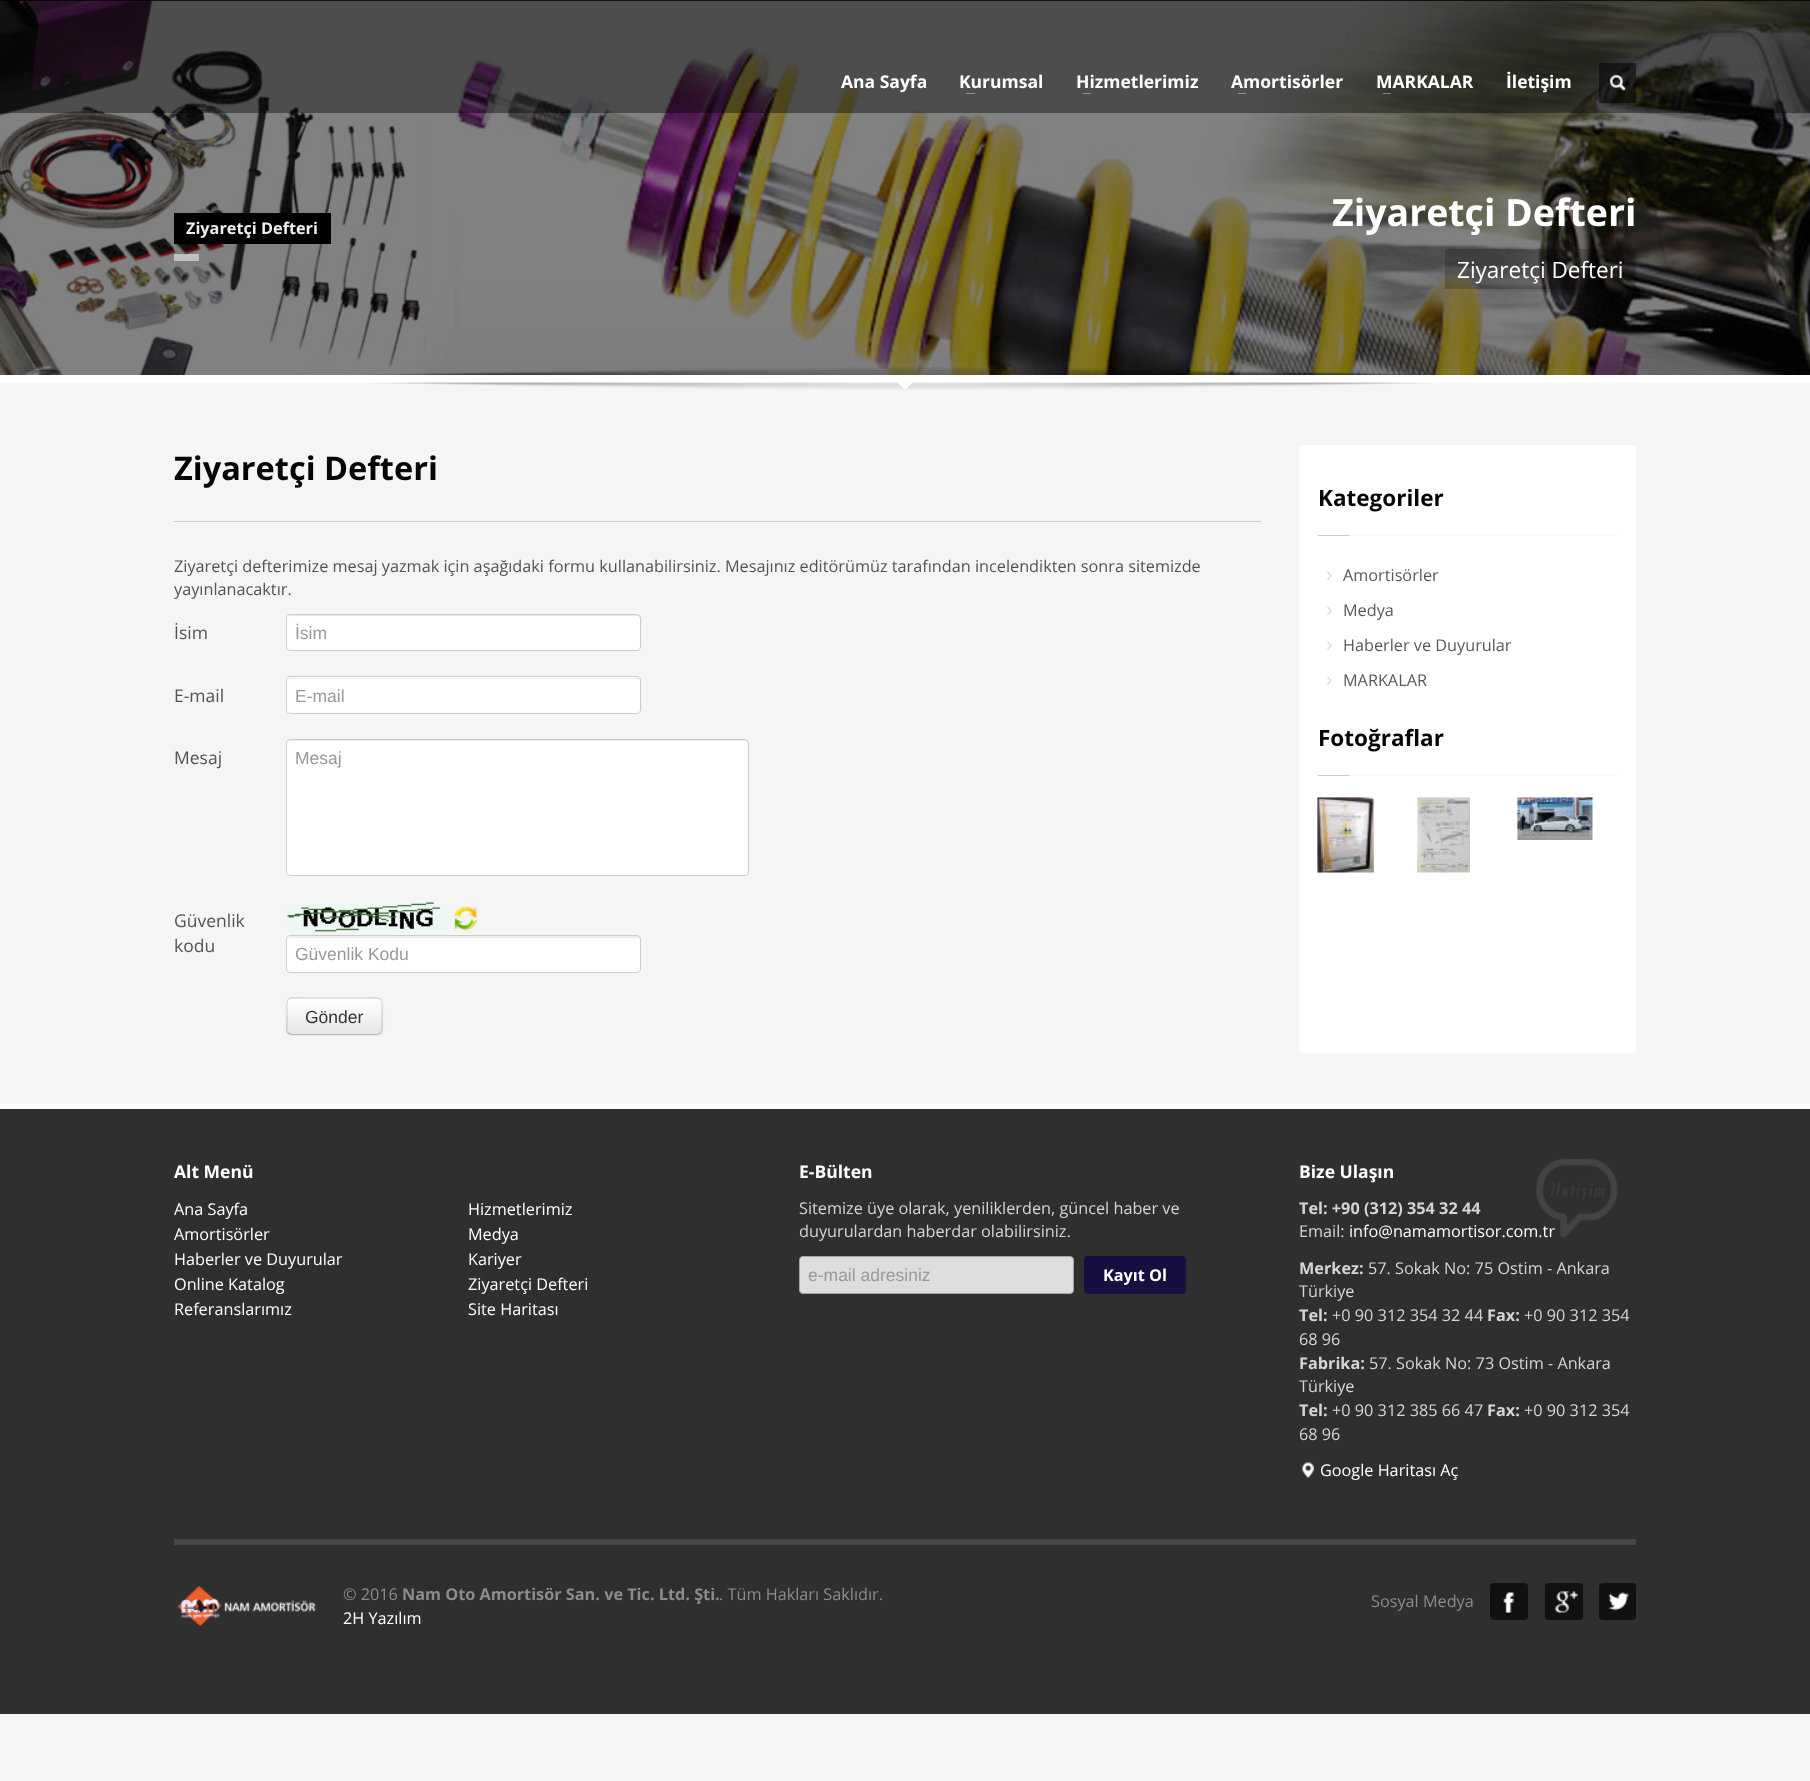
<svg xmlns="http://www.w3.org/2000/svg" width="1810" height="1781">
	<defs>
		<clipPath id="clip1"><rect x="286" y="998" width="97" height="37" rx="5" /></clipPath>
		<linearGradient id="g1" gradientUnits="userSpaceOnUse" x1="334" y1="999" x2="334" y2="1034"><stop offset="0" stop-color="#FFFFFF" /><stop offset="1" stop-color="#E6E6E6" /></linearGradient>
	</defs>
	<rect width="100%" height="100%" fill="#F5F5F5" />
	<image x="0" y="0" width="1810" height="375" href="assets/img2.png" />
	<rect x="0" y="0" width="1810" height="113" fill="#000000" fill-opacity="0.4" />
	<rect x="0" y="0" width="1810" height="1" fill="#000000" fill-opacity="0.75" />
	<g font-family="Open Sans" font-size="17.5" font-weight="700" fill="#FFFFFF">
		<text x="841" y="88">Ana Sayfa</text>
		<text x="959" y="88">Kurumsal</text>
	</g>
	<rect x="966" y="93" width="9" height="1" fill="#949494" />
	<text x="1076" y="88" font-family="Open Sans" font-size="17.5" font-weight="700" fill="#FFFFFF">Hizmetlerimiz</text>
	<rect x="1083" y="93" width="8" height="1" fill="#949494" />
	<text x="1231" y="88" font-family="Open Sans" font-size="17.5" font-weight="700" fill="#FFFFFF">Amortisörler</text>
	<rect x="1238" y="93" width="8" height="1" fill="#949494" />
	<text x="1376" y="88" font-family="Open Sans" font-size="17.5" font-weight="700" fill="#FFFFFF">MARKALAR</text>
	<rect x="1383" y="93" width="8" height="1" fill="#FFFFFF" fill-opacity="0.4" />
	<text x="1506" y="88" font-family="Open Sans" font-size="17.5" font-weight="700" fill="#FFFFFF">İletişim</text>
	<rect x="1599" y="63" width="37" height="40" fill="#000000" fill-opacity="0.5" />
	<image x="1609" y="74" width="18" height="18" href="assets/img1.png" />
	<rect x="0" y="375" width="1810" height="8" fill="#FFFFFF" />
	<rect x="174" y="213" width="157" height="31" fill="#000000" />
	<text x="186" y="234" font-family="Open Sans" font-size="16.25" font-weight="700" fill="#EEEEEE">Ziyaretçi Defteri</text>
	<rect x="174" y="254" width="25" height="7" fill="#FFFFFF" fill-opacity="0.5" />
	<text x="1332" y="226" font-family="Open Sans" font-size="37.5" font-weight="700" fill="#FFFFFF">Ziyaretçi Defteri</text>
	<rect x="1445" y="249" width="191" height="40" fill="#000000" fill-opacity="0.2" />
	<text x="1457" y="278" font-family="Open Sans" font-size="22.5" fill="#FFFFFF">Ziyaretçi Defteri</text>
	<image x="364" y="367" width="1078" height="8" href="assets/img3.png" />
	<image x="373" y="382" width="1060" height="8" href="assets/img4.png" />
	<path d="M897.5 382.5H912.5L905 390Z" fill="#FFFFFF" />
	<rect x="174" y="521" width="1087" height="1" fill="#CBCBCB" />
	<text x="174" y="480" font-family="Open Sans" font-size="32.5" font-weight="700" fill="#050505">Ziyaretçi Defteri</text>
	<g font-family="Open Sans" font-size="16.25" fill="#535353">
		<text x="174" y="572">Ziyaretçi defterimize mesaj yazmak için aşağıdaki formu kullanabilirsiniz. Mesajınız editörümüz tarafından incelendikten sonra sitemizde</text>
		<text x="174" y="595">yayınlanacaktır.</text>
	</g>
	<text x="174" y="639" font-family="Open Sans" font-size="17.5" fill="#535353">İsim</text>
	<rect x="286" y="614" width="355" height="37" rx="4" fill="#FFFFFF" />
	<path d="M290 616H638C639 616 640 617 640 619V616L638 615H290C288 615 288 617 288 619C288 617 289 616 290 616Z" fill="#ECECEC" />
	<rect x="286.5" y="614.5" width="354" height="36" rx="3.5" fill="none" stroke="#CCCCCC" />
	<text x="295" y="639" font-family="Liberation Sans" font-size="17.5" fill="#999999">İsim</text>
	<text x="174" y="702" font-family="Open Sans" font-size="17.5" fill="#535353">E-mail</text>
	<rect x="286" y="676" width="355" height="38" rx="4" fill="#FFFFFF" />
	<path d="M290 679H638C639 679 640 680 640 681C640 679 639 678 638 678H290C289 678 288 679 288 681C288 680 289 679 290 679Z" fill="#ECECEC" />
	<rect x="286.5" y="676.5" width="354" height="37" rx="3.5" fill="none" stroke="#CCCCCC" />
	<text x="295" y="702" font-family="Liberation Sans" font-size="17.5" fill="#999999">E-mail</text>
	<text x="174" y="764" font-family="Open Sans" font-size="17.5" fill="#535353">Mesaj</text>
	<rect x="286" y="739" width="463" height="137" rx="4" fill="#FFFFFF" />
	<path d="M290 741H745C746 741 748 742 748 744C748 742 748 740 746 740H290L288 741V744C288 742 289 741 290 741Z" fill="#ECECEC" />
	<rect x="286.5" y="739.5" width="462" height="136" rx="3.5" fill="none" stroke="#CCCCCC" />
	<text x="295" y="764" font-family="Liberation Sans" font-size="17.5" fill="#999999">Mesaj</text>
	<g font-family="Open Sans" font-size="17.5" fill="#535353">
		<text x="174" y="927">Güvenlik</text>
		<text x="174" y="952">kodu</text>
	</g>
	<image x="286" y="902" width="163" height="32" href="assets/img5.png" />
	<image x="453" y="906" width="25" height="25" href="assets/img6.png" />
	<rect x="286" y="935" width="355" height="38" rx="4" fill="#FFFFFF" />
	<path d="M290 938H638C639 938 640 939 640 940V937L638 936H290C288 936 288 938 288 940C288 939 289 938 290 938Z" fill="#ECECEC" />
	<rect x="286.5" y="935.5" width="354" height="37" rx="3.5" fill="none" stroke="#CCCCCC" />
	<text x="295" y="960" font-family="Liberation Sans" font-size="17.5" fill="#999999">Güvenlik Kodu</text>
	<rect x="286" y="999" width="97" height="37" rx="5" fill="#000000" fill-opacity="0.05" filter="blur(1px)" />
	<rect x="286" y="998" width="97" height="37" rx="5" fill="#F5F5F5" />
	<g clip-path="url(#clip1)">
		<rect x="286" y="999" width="97" height="35" fill="url(#g1)" />
	</g>
	<path d="M380.5 1033L378 1034.5H291L288 1033" fill="none" stroke="#000000" stroke-opacity="0.25" stroke-width="1.2" />
	<path d="M288 1033C286 1031 287 1028 287 1025.5V1016C287 995.5 284 998 305.5 998H363C385 998 382 995.5 382 1016V1025.5C382 1028 382.5 1031 380.5 1033" fill="none" stroke="#000000" stroke-opacity="0.15" stroke-width="1.2" />
	<text x="305" y="1023" font-family="Liberation Sans" font-size="17.5" fill="#333333">Gönder</text>
	<rect x="1299" y="445" width="337" height="608" rx="4" fill="#FFFFFF" />
	<text x="1318" y="506" font-family="Open Sans" font-size="22.5" font-weight="700" fill="#050505">Kategoriler</text>
	<rect x="1318" y="535" width="31" height="1" fill="#CBCBCB" />
	<rect x="1349" y="535" width="269" height="1" fill="#F9F9F9" />
	<text x="1326" y="581" font-family="Liberation Sans" font-size="20" fill="#DDDDDD">›</text>
	<text x="1343" y="581" font-family="Open Sans" font-size="16.25" fill="#595959">Amortisörler</text>
	<text x="1326" y="616" font-family="Liberation Sans" font-size="20" fill="#DDDDDD">›</text>
	<text x="1343" y="616" font-family="Open Sans" font-size="16.25" fill="#595959">Medya</text>
	<text x="1326" y="651" font-family="Liberation Sans" font-size="20" fill="#DDDDDD">›</text>
	<text x="1343" y="651" font-family="Open Sans" font-size="16.25" fill="#595959">Haberler ve Duyurular</text>
	<text x="1326" y="686" font-family="Liberation Sans" font-size="20" fill="#DDDDDD">›</text>
	<text x="1343" y="686" font-family="Open Sans" font-size="16.25" fill="#595959">MARKALAR</text>
	<text x="1318" y="746" font-family="Open Sans" font-size="22.5" font-weight="700" fill="#050505">Fotoğraflar</text>
	<rect x="1318" y="775" width="31" height="1" fill="#CBCBCB" />
	<rect x="1349" y="775" width="269" height="1" fill="#F9F9F9" />
	<image x="1317" y="797" width="57" height="76" href="assets/img7.png" />
	<rect x="1320" y="800" width="71" height="71" rx="0.5" fill="none" stroke="#FFFFFF" stroke-opacity="0.15" stroke-width="4" />
	<image x="1417" y="797" width="53" height="76" href="assets/img8.png" />
	<rect x="1420" y="800" width="71" height="71" rx="0.5" fill="none" stroke="#FFFFFF" stroke-opacity="0.15" stroke-width="4" />
	<image x="1517" y="797" width="76" height="43" href="assets/img9.png" />
	<rect x="1520" y="800" width="71" height="38" rx="0.5" fill="none" stroke="#FFFFFF" stroke-opacity="0.15" stroke-width="4" />
	<rect x="0" y="1109" width="1810" height="605" fill="#2F2F2F" />
	<rect x="0" y="1104" width="1810" height="5" fill="#FFFFFF" />
	<text x="174" y="1178" font-family="Open Sans" font-size="17.5" font-weight="700" fill="#FFFFFF">Alt Menü</text>
	<g font-family="Open Sans" font-size="16.25" fill="#FFFFFF">
		<text x="174" y="1215">Ana Sayfa</text>
		<text x="468" y="1215">Hizmetlerimiz</text>
		<text x="174" y="1240">Amortisörler</text>
		<text x="468" y="1240">Medya</text>
		<text x="174" y="1265">Haberler ve Duyurular</text>
		<text x="468" y="1265">Kariyer</text>
		<text x="174" y="1290">Online Katalog</text>
		<text x="468" y="1290">Ziyaretçi Defteri</text>
		<text x="174" y="1315">Referanslarımız</text>
		<text x="468" y="1315">Site Haritası</text>
	</g>
	<text x="799" y="1178" font-family="Open Sans" font-size="17.5" font-weight="700" fill="#FFFFFF">E-Bülten</text>
	<g font-family="Open Sans" font-size="16.25" fill="#D5D5D5">
		<text x="799" y="1214">Sitemize üye olarak, yeniliklerden, güncel haber ve</text>
		<text x="799" y="1237">duyurulardan haberdar olabilirsiniz.</text>
	</g>
	<rect x="799.5" y="1256.5" width="274" height="37" rx="3.5" fill="#DDDDDD" stroke="#A3A3A3" />
	<text x="808" y="1281" font-family="Liberation Sans" font-size="17.5" fill="#999999">e-mail adresiniz</text>
	<rect x="1084" y="1256" width="102" height="38" rx="4" fill="#161041" />
	<text x="1103" y="1281" font-family="Open Sans" font-size="16.25" font-weight="700" fill="#FFFFFF">Kayıt Ol</text>
	<image x="1536" y="1158" width="82" height="80" href="assets/img10.png" />
	<text x="1299" y="1178" font-family="Open Sans" font-size="17.5" font-weight="700" fill="#FFFFFF">Bize Ulaşın</text>
	<text x="1299" y="1214" font-family="Open Sans" font-size="16.25" font-weight="700" fill="#D5D5D5">Tel: +90 (312) 354 32 44</text>
	<text x="1299" y="1237" font-family="Open Sans" font-size="16.25" fill="#D5D5D5">Email:</text>
	<text x="1349" y="1237" font-family="Open Sans" font-size="16.25" fill="#FFFFFF">info@namamortisor.com.tr</text>
	<text x="1299" y="1274" font-family="Open Sans" font-size="16.25" font-weight="700" fill="#D5D5D5">Merkez:</text>
	<g font-family="Open Sans" font-size="16.25" fill="#D5D5D5">
		<text x="1368" y="1274">57. Sokak No: 75 Ostim - Ankara</text>
		<text x="1299" y="1297">Türkiye</text>
	</g>
	<text x="1299" y="1321" font-family="Open Sans" font-size="16.25" font-weight="700" fill="#D5D5D5">Tel:</text>
	<text x="1332" y="1321" font-family="Open Sans" font-size="16.25" fill="#D5D5D5">+0 90 312 354 32 44</text>
	<text x="1487" y="1321" font-family="Open Sans" font-size="16.25" font-weight="700" fill="#D5D5D5">Fax:</text>
	<g font-family="Open Sans" font-size="16.25" fill="#D5D5D5">
		<text x="1524" y="1321">+0 90 312 354</text>
		<text x="1299" y="1345">68 96</text>
	</g>
	<text x="1299" y="1369" font-family="Open Sans" font-size="16.25" font-weight="700" fill="#D5D5D5">Fabrika:</text>
	<g font-family="Open Sans" font-size="16.25" fill="#D5D5D5">
		<text x="1369" y="1369">57. Sokak No: 73 Ostim - Ankara</text>
		<text x="1299" y="1392">Türkiye</text>
	</g>
	<text x="1299" y="1416" font-family="Open Sans" font-size="16.25" font-weight="700" fill="#D5D5D5">Tel:</text>
	<text x="1332" y="1416" font-family="Open Sans" font-size="16.25" fill="#D5D5D5">+0 90 312 385 66 47</text>
	<text x="1487" y="1416" font-family="Open Sans" font-size="16.25" font-weight="700" fill="#D5D5D5">Fax:</text>
	<g font-family="Open Sans" font-size="16.25" fill="#D5D5D5">
		<text x="1524" y="1416">+0 90 312 354</text>
		<text x="1299" y="1440">68 96</text>
	</g>
	<image x="1302" y="1462" width="12" height="16" href="assets/img11.png" />
	<text x="1320" y="1476" font-family="Open Sans" font-size="16.25" fill="#FFFFFF">Google Haritası Aç</text>
	<rect x="174" y="1539" width="1462" height="6" fill="#484848" />
	<image x="177" y="1586" width="139" height="41" href="assets/img12.png" />
	<text x="343" y="1600" font-family="Open Sans" font-size="16.25" fill="#8B8C8D">© 2016</text>
	<text x="402" y="1600" font-family="Open Sans" font-size="16.25" font-weight="700" fill="#8B8C8D">Nam Oto Amortisör San. ve Tic. Ltd. Şti.</text>
	<text x="719" y="1600" font-family="Open Sans" font-size="16.25" fill="#8B8C8D">. Tüm Hakları Saklıdır.</text>
	<text x="343" y="1624" font-family="Open Sans" font-size="16.25" fill="#FFFFFF">2H Yazılım</text>
	<text x="1371" y="1607" font-family="Open Sans" font-size="16.25" fill="#8B8C8D">Sosyal Medya</text>
	<rect x="1490" y="1583" width="38" height="37" rx="4" fill="#111111" />
	<image x="1503" y="1592" width="11" height="21" href="assets/img13.png" />
	<rect x="1545" y="1583" width="38" height="37" rx="4" fill="#111111" />
	<image x="1554" y="1591" width="24" height="22" href="assets/img14.png" />
	<rect x="1599" y="1583" width="37" height="37" rx="4" fill="#111111" />
	<image x="1608" y="1592" width="21" height="19" href="assets/img15.png" />
</svg>
